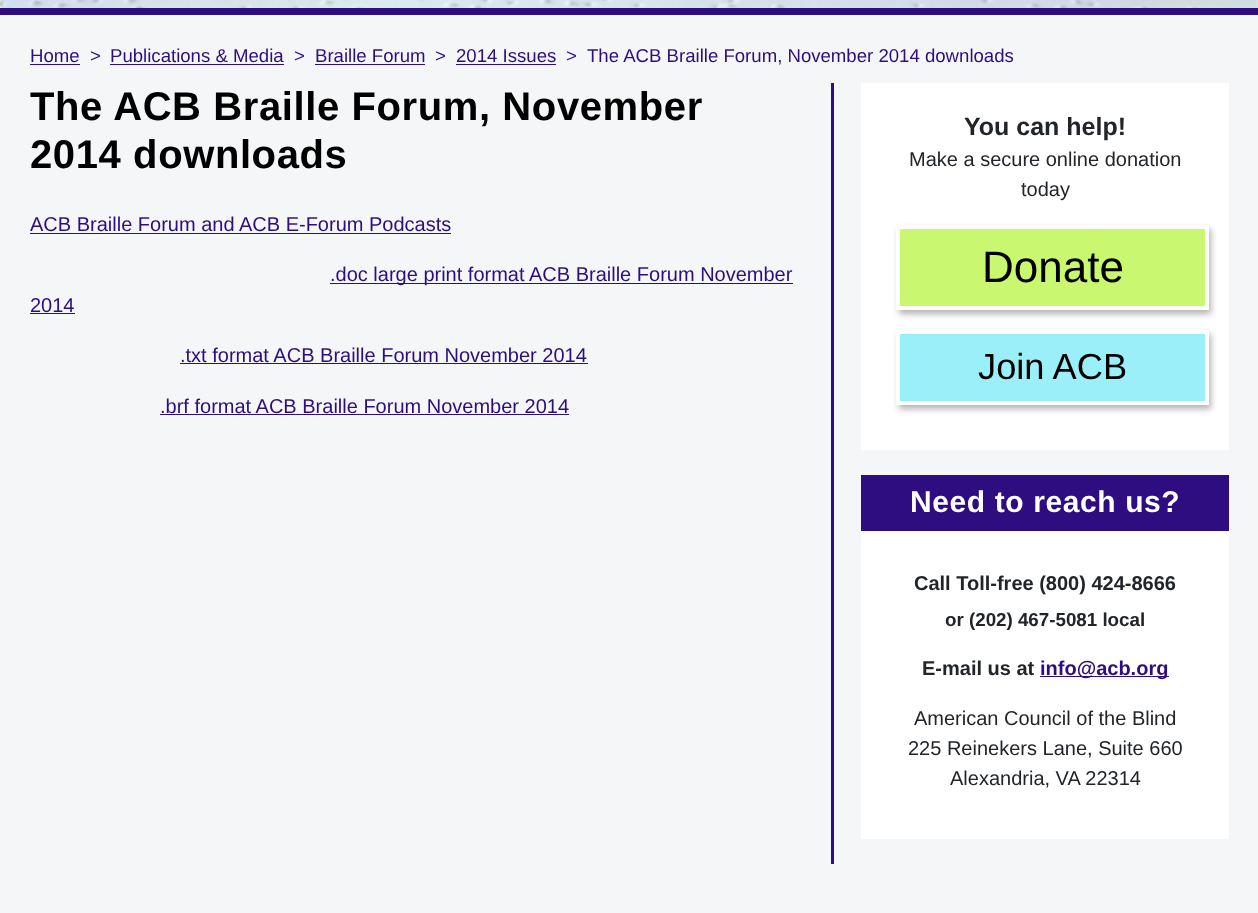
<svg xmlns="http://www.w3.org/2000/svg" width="1258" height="913">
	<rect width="100%" height="100%" fill="#F5F6F7" />
	<image x="0" y="0" width="1258" height="8" href="assets/img1.png" />
	<rect x="0" y="8" width="1258" height="7" fill="#2D0D7F" />
	<text x="30" y="62" font-family="Liberation Sans" font-size="18.6" fill="#2D0D7F">Home</text>
	<rect x="30" y="64" width="50" height="1" fill="#2D0D7F" />
	<g font-family="Liberation Sans" font-size="18.6" fill="#2D0D7F">
		<text x="90" y="62">&gt;</text>
		<text x="110" y="62">Publications &amp; Media</text>
	</g>
	<rect x="110" y="64" width="174" height="1" fill="#2D0D7F" />
	<g font-family="Liberation Sans" font-size="18.6" fill="#2D0D7F">
		<text x="294" y="62">&gt;</text>
		<text x="315" y="62">Braille Forum</text>
	</g>
	<rect x="315" y="64" width="110" height="1" fill="#2D0D7F" />
	<g font-family="Liberation Sans" font-size="18.6" fill="#2D0D7F">
		<text x="435" y="62">&gt;</text>
		<text x="456" y="62">2014 Issues</text>
	</g>
	<rect x="456" y="64" width="100" height="1" fill="#2D0D7F" />
	<g font-family="Liberation Sans" font-size="18.6" fill="#2D0D7F">
		<text x="566" y="62">&gt;</text>
		<text x="587" y="62">The ACB Braille Forum, November 2014 downloads</text>
	</g>
	<rect x="831" y="83" width="3" height="781" fill="#2D0D80" />
	<g font-family="Liberation Sans" font-size="40" font-weight="700" letter-spacing="0.6" fill="#000000">
		<text x="30" y="120">The ACB Braille Forum, November</text>
		<text x="30" y="168">2014 downloads</text>
	</g>
	<text x="30" y="231" font-family="Liberation Sans" font-size="20" fill="#2D0D7F">ACB Braille Forum and ACB E-Forum Podcasts</text>
	<rect x="30" y="233" width="421" height="1" fill="#2D0D80" />
	<rect x="330" y="283" width="463" height="1" fill="#2D0D80" />
	<g font-family="Liberation Sans" font-size="20" fill="#2D0D7F">
		<text x="330" y="281">.doc large print format ACB Braille Forum November</text>
		<text x="30" y="312">2014</text>
	</g>
	<rect x="30" y="313" width="45" height="1" fill="#2D0D80" />
	<text x="180" y="362" font-family="Liberation Sans" font-size="20" fill="#2D0D7F">.txt format ACB Braille Forum November 2014</text>
	<rect x="180" y="363" width="408" height="1" fill="#2D0D80" />
	<text x="160" y="413" font-family="Liberation Sans" font-size="20" fill="#2D0D7F">.brf format ACB Braille Forum November 2014</text>
	<rect x="160" y="414" width="409" height="1" fill="#2D0D80" />
	<rect x="861" y="83" width="368" height="367" fill="#FFFFFF" />
	<text x="964" y="135" font-family="Liberation Sans" font-size="25" font-weight="700" fill="#212529">You can help!</text>
	<g font-family="Liberation Sans" font-size="20" fill="#212529">
		<text x="909" y="166">Make a secure online donation</text>
		<text x="1021" y="196">today</text>
	</g>
	<rect x="899" y="229" width="312" height="85" fill="#020202" fill-opacity="0.3" filter="blur(3px)" />
	<rect x="898" y="227" width="309" height="81" fill="#C9F76F" stroke="#FFFFFF" stroke-width="4" />
	<text x="982" y="282" font-family="Liberation Sans" font-size="44" fill="#000000">Donate</text>
	<rect x="899" y="334" width="312" height="75" fill="#020202" fill-opacity="0.3" filter="blur(3px)" />
	<rect x="898" y="332" width="309" height="71" fill="#9BEFF9" stroke="#FFFFFF" stroke-width="4" />
	<text x="978" y="379" font-family="Liberation Sans" font-size="36.25" fill="#000000">Join ACB</text>
	<rect x="861" y="531" width="368" height="308" fill="#FFFFFF" />
	<rect x="861" y="475" width="368" height="56" fill="#2D0D80" />
	<text x="910" y="512" font-family="Liberation Sans" font-size="30" font-weight="700" letter-spacing="0.6" fill="#FFFFFF">Need to reach us?</text>
	<text x="914" y="590" font-family="Liberation Sans" font-size="20" font-weight="700" fill="#212529">Call Toll-free (800) 424-8666</text>
	<text x="945" y="626" font-family="Liberation Sans" font-size="18.75" font-weight="700" fill="#212529">or (202) 467-5081 local</text>
	<text x="922" y="675" font-family="Liberation Sans" font-size="20" font-weight="700" fill="#212529">E-mail us at</text>
	<rect x="1040" y="676" width="129" height="1" fill="#2D0D80" />
	<text x="1040" y="675" font-family="Liberation Sans" font-size="20" font-weight="700" fill="#2D0D7F">info@acb.org</text>
	<g font-family="Liberation Sans" font-size="20" fill="#212529">
		<text x="914" y="725">American Council of the Blind</text>
		<text x="908" y="755">225 Reinekers Lane, Suite 660</text>
		<text x="950" y="785">Alexandria, VA 22314</text>
	</g>
</svg>
